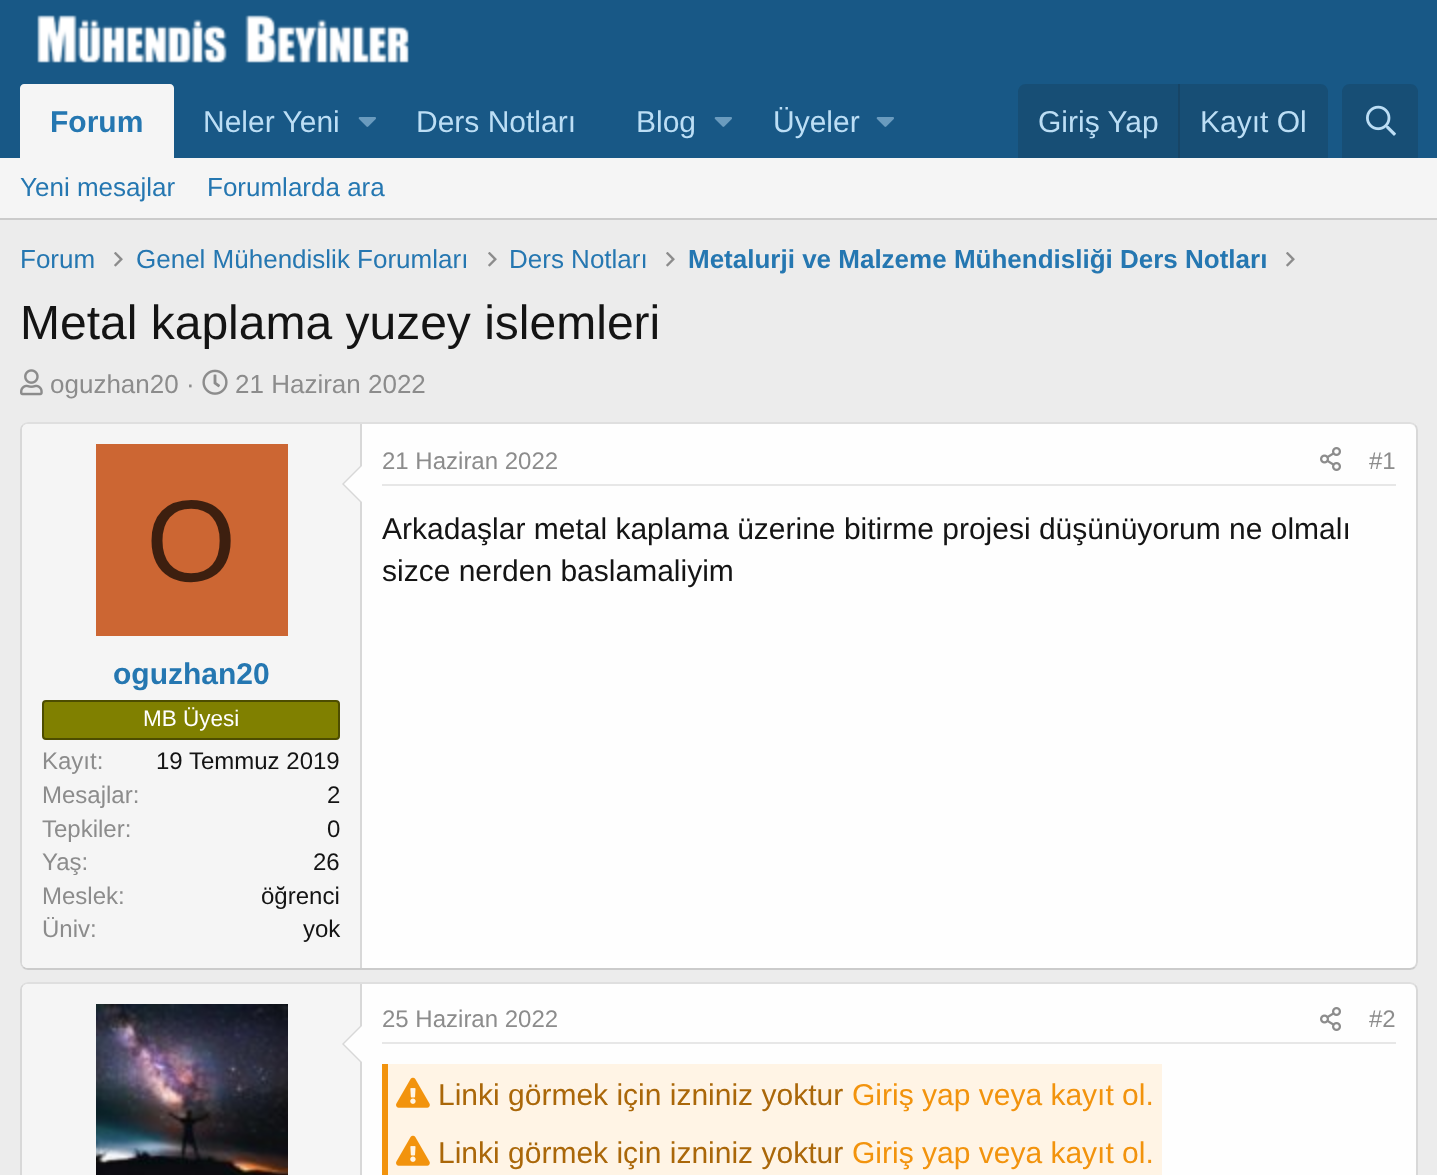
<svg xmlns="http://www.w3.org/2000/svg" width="1437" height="1175">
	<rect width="100%" height="100%" fill="#ECECEC" />
	<rect x="0" y="0" width="1437" height="158" fill="#185886" />
	<image x="37" y="15" width="372" height="48" href="assets/img1.png" />
	<path d="M24 84H170C172 84 174 86 174 88V158H20V88C20 86 22 84 24 84Z" fill="#F5F5F5" />
	<text x="50" y="132" font-family="Liberation Sans" font-size="30" font-weight="700" fill="#2577B1">Forum</text>
	<text x="203" y="132" font-family="Liberation Sans" font-size="30" fill="#BCDEF5">Neler Yeni</text>
	<image x="358" y="117" width="18" height="10" href="assets/img2.png" />
	<g font-family="Liberation Sans" font-size="30" fill="#BCDEF5">
		<text x="416" y="132">Ders Notları</text>
		<text x="636" y="132">Blog</text>
	</g>
	<image x="714" y="117" width="18" height="10" href="assets/img2.png" />
	<text x="773" y="132" font-family="Liberation Sans" font-size="30" fill="#BCDEF5">Üyeler</text>
	<image x="876" y="117" width="18" height="10" href="assets/img2.png" />
	<path d="M1026 84H1320C1324.5 84 1328 87.5 1328 92V158H1018V92C1018 87.5 1021.5 84 1026 84Z" fill="#174E75" />
	<text x="1038" y="132" font-family="Liberation Sans" font-size="30" fill="#BCDEF5">Giriş Yap</text>
	<rect x="1178" y="84" width="2" height="74" fill="#174566" />
	<text x="1200" y="132" font-family="Liberation Sans" font-size="30" fill="#BCDEF5">Kayıt Ol</text>
	<path d="M1350 84H1410C1414.5 84 1418 87.5 1418 92V158H1342V92C1342 87.5 1345.5 84 1350 84Z" fill="#174E75" />
	<image x="1366" y="105" width="30" height="31" href="assets/img3.png" />
	<rect x="0" y="158" width="1437" height="60" fill="#F5F5F5" />
	<rect x="0" y="218" width="1437" height="2" fill="#CBCBCB" />
	<g font-family="Liberation Sans" font-size="26" fill="#2577B1">
		<text x="20" y="196">Yeni mesajlar</text>
		<text x="207" y="196">Forumlarda ara</text>
		<text x="20" y="268">Forum</text>
	</g>
	<image x="114" y="252" width="9" height="15" href="assets/img4.png" />
	<text x="136" y="268" font-family="Liberation Sans" font-size="26" fill="#2577B1">Genel Mühendislik Forumları</text>
	<image x="488" y="252" width="9" height="15" href="assets/img4.png" />
	<text x="509" y="268" font-family="Liberation Sans" font-size="26" fill="#2577B1">Ders Notları</text>
	<image x="666" y="252" width="9" height="15" href="assets/img4.png" />
	<text x="688" y="268" font-family="Liberation Sans" font-size="26" font-weight="700" fill="#2577B1">Metalurji ve Malzeme Mühendisliği Ders Notları</text>
	<image x="1286" y="252" width="9" height="15" href="assets/img4.png" />
	<text x="20" y="339" font-family="Liberation Sans" font-size="48" fill="#141414">Metal kaplama yuzey islemleri</text>
	<image x="20" y="369" width="23" height="27" href="assets/img5.png" />
	<text x="50" y="393" font-family="Liberation Sans" font-size="26" fill="#8C8C8C">oguzhan20 ·</text>
	<image x="202" y="369" width="26" height="26" href="assets/img6.png" />
	<text x="235" y="393" font-family="Liberation Sans" font-size="26" fill="#8C8C8C">21 Haziran 2022</text>
	<rect x="20" y="422" width="1398" height="548" rx="8" fill="#FEFEFE" />
	<path d="M23 425C24.5 423.5 26 423 28 423H1410C1412 423 1413.5 423.5 1415 425" fill="none" stroke="#DFDFDF" stroke-width="2" />
	<path d="M1415 425C1416.5 426.5 1417 428 1417 430V962C1417 964 1416.5 965.5 1415 967" fill="none" stroke="#D8D8D8" stroke-width="2" />
	<path d="M1415 967C1413.5 968.5 1412 969 1410 969H28C26 969 24.5 968.5 23 967" fill="none" stroke="#CBCBCB" stroke-width="2" />
	<path d="M23 967C21.5 965.5 21 964 21 962V430C21 428 21.5 426.5 23 425" fill="none" stroke="#D8D8D8" stroke-width="2" />
	<path d="M28 424H362V968H28C24.5 968 22 965.5 22 962V430C22 426.5 24.5 424 28 424Z" fill="#F5F5F5" />
	<rect x="360" y="424" width="2" height="544" fill="#D8D8D8" />
	<path d="M362 464V504L342 484Z" fill="#D8D8D8" />
	<path d="M362 466V502L344 484Z" fill="#FEFEFE" />
	<rect x="96" y="444" width="192" height="192" fill="#CC6633" />
	<text x="146" y="581" font-family="Liberation Sans" font-size="116" fill="#3D1F0F">O</text>
	<text x="113" y="684" font-family="Liberation Sans" font-size="30" font-weight="700" fill="#2577B1">oguzhan20</text>
	<rect x="43" y="701" width="296" height="38" rx="3" fill="#808000" stroke="#4D4D00" stroke-width="2" />
	<text x="143" y="726" font-family="Liberation Sans" font-size="22.5" fill="#FFFFFF">MB Üyesi</text>
	<text x="42" y="769" font-family="Liberation Sans" font-size="24" fill="#8C8C8C">Kayıt:</text>
	<text x="156" y="769" font-family="Liberation Sans" font-size="24" fill="#141414">19 Temmuz 2019</text>
	<text x="42" y="803" font-family="Liberation Sans" font-size="24" fill="#8C8C8C">Mesajlar:</text>
	<text x="327" y="803" font-family="Liberation Sans" font-size="24" fill="#141414">2</text>
	<text x="42" y="837" font-family="Liberation Sans" font-size="24" fill="#8C8C8C">Tepkiler:</text>
	<text x="327" y="837" font-family="Liberation Sans" font-size="24" fill="#141414">0</text>
	<text x="42" y="870" font-family="Liberation Sans" font-size="24" fill="#8C8C8C">Yaş:</text>
	<text x="313" y="870" font-family="Liberation Sans" font-size="24" fill="#141414">26</text>
	<text x="42" y="904" font-family="Liberation Sans" font-size="24" fill="#8C8C8C">Meslek:</text>
	<text x="261" y="904" font-family="Liberation Sans" font-size="24" fill="#141414">öğrenci</text>
	<text x="42" y="937" font-family="Liberation Sans" font-size="24" fill="#8C8C8C">Üniv:</text>
	<text x="303" y="937" font-family="Liberation Sans" font-size="24" fill="#141414">yok</text>
	<rect x="382" y="484" width="1014" height="2" fill="#E7E7E7" />
	<text x="382" y="469" font-family="Liberation Sans" font-size="24" fill="#8C8C8C">21 Haziran 2022</text>
	<image x="1320" y="447" width="21" height="24" href="assets/img7.png" />
	<text x="1369" y="469" font-family="Liberation Sans" font-size="24" fill="#8C8C8C">#1</text>
	<g font-family="Liberation Sans" font-size="30" fill="#141414">
		<text x="382" y="539">Arkadaşlar metal kaplama üzerine bitirme projesi düşünüyorum ne olmalı</text>
		<text x="382" y="581">sizce nerden baslamaliyim</text>
	</g>
	<rect x="20" y="982" width="1398" height="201" rx="8" fill="#FEFEFE" />
	<path d="M23 985C24.5 983.5 26 983 28 983H1410C1412 983 1413.5 983.5 1415 985" fill="none" stroke="#DFDFDF" stroke-width="2" />
	<path d="M1415 985C1416.5 986.5 1417 988 1417 990V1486C1417 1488 1416.5 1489.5 1415 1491" fill="none" stroke="#D8D8D8" stroke-width="2" />
	<path d="M23 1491C21.5 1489.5 21 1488 21 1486V990C21 988 21.5 986.5 23 985" fill="none" stroke="#D8D8D8" stroke-width="2" />
	<path d="M28 984H362V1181H28C24.5 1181 22 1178.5 22 1175V990C22 986.5 24.5 984 28 984Z" fill="#F5F5F5" />
	<rect x="360" y="984" width="2" height="191" fill="#D8D8D8" />
	<image x="96" y="1004" width="192" height="171" href="assets/img8.png" />
	<path d="M362 1024V1064L342 1044Z" fill="#D8D8D8" />
	<path d="M362 1026V1062L344 1044Z" fill="#FEFEFE" />
	<rect x="382" y="1042" width="1014" height="2" fill="#E7E7E7" />
	<text x="382" y="1027" font-family="Liberation Sans" font-size="24" fill="#8C8C8C">25 Haziran 2022</text>
	<image x="1320" y="1007" width="21" height="24" href="assets/img7.png" />
	<text x="1369" y="1027" font-family="Liberation Sans" font-size="24" fill="#8C8C8C">#2</text>
	<rect x="388" y="1064" width="774" height="111" fill="#FFF4E5" />
	<rect x="382" y="1064" width="6" height="111" fill="#F2930D" />
	<image x="396" y="1077" width="34" height="31" href="assets/img9.png" />
	<text x="438" y="1105" font-family="Liberation Sans" font-size="30" fill="#AA6709">Linki görmek için izniniz yoktur</text>
	<text x="852" y="1105" font-family="Liberation Sans" font-size="30" fill="#F2930D">Giriş yap veya kayıt ol.</text>
	<image x="396" y="1135" width="34" height="31" href="assets/img9.png" />
	<text x="438" y="1163" font-family="Liberation Sans" font-size="30" fill="#AA6709">Linki görmek için izniniz yoktur</text>
	<text x="852" y="1163" font-family="Liberation Sans" font-size="30" fill="#F2930D">Giriş yap veya kayıt ol.</text>
</svg>
